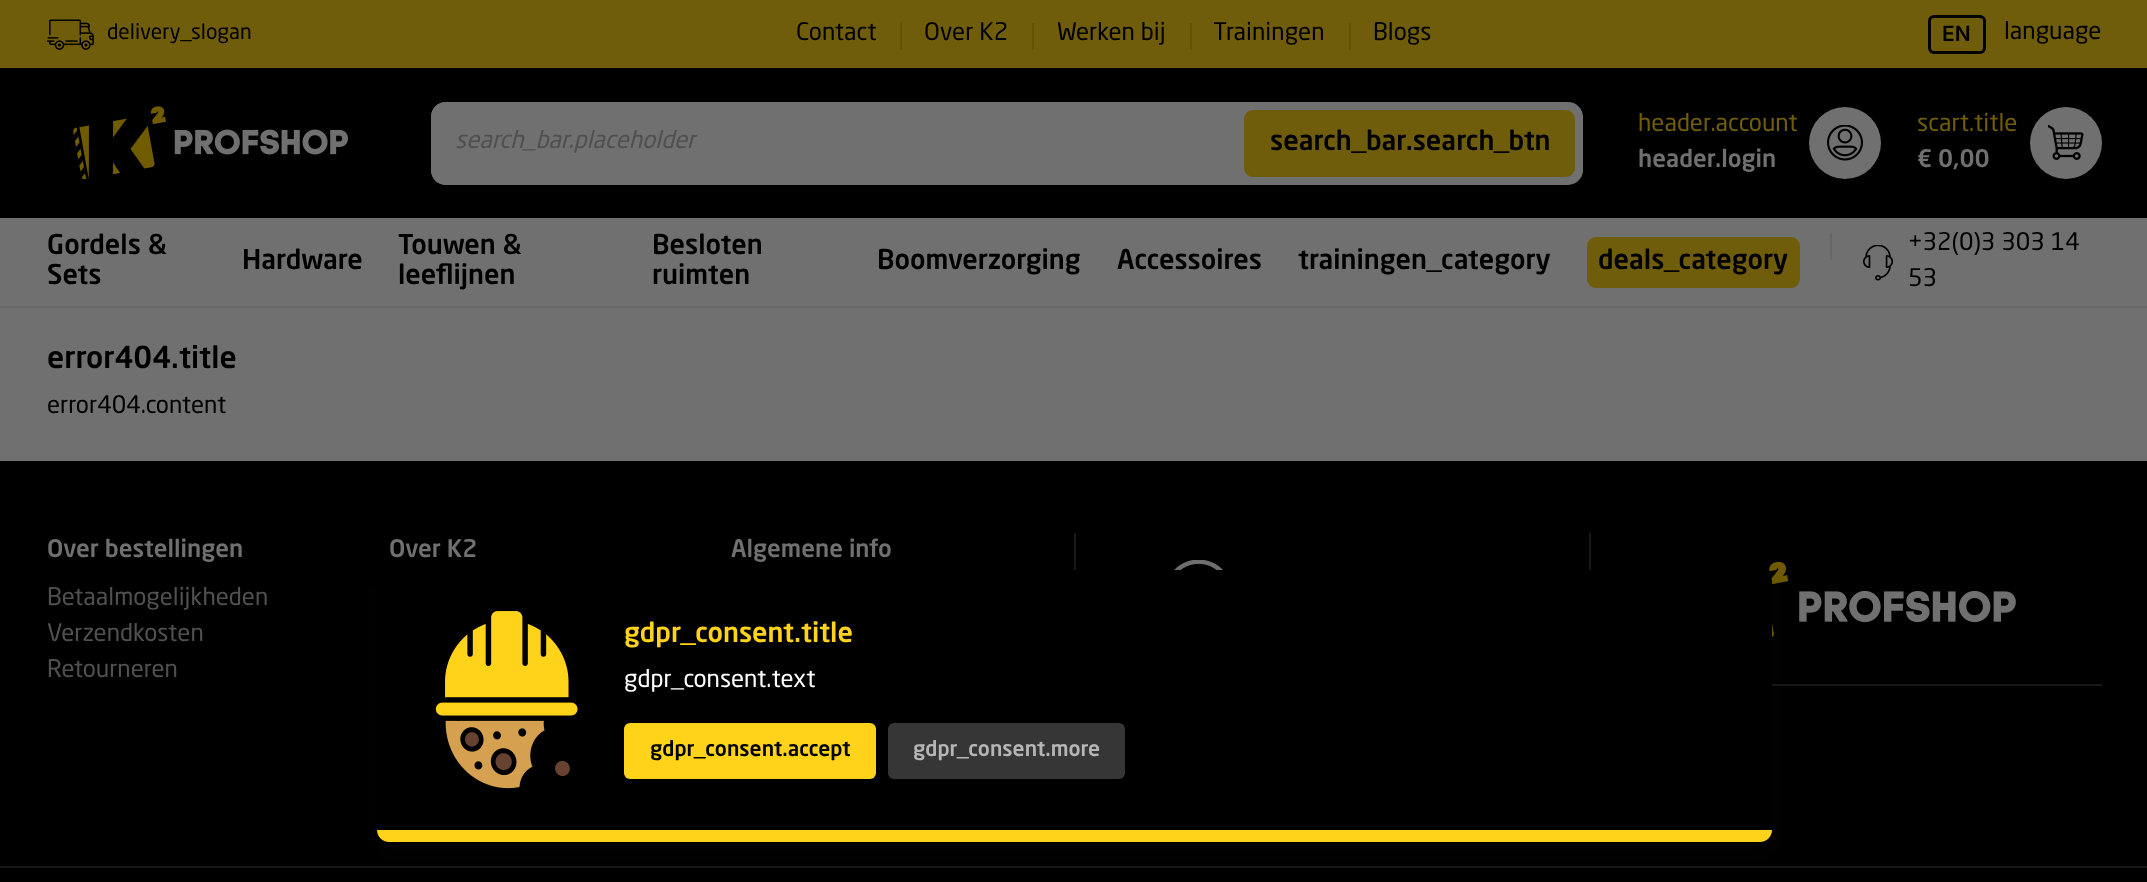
<svg xmlns="http://www.w3.org/2000/svg" width="2147" height="882">
	<rect width="100%" height="100%" fill="#707070" />
	<rect x="0" y="0" width="2147" height="68" fill="#705D0B" />
	<image x="47" y="19" width="47" height="31" href="assets/img1.png" />
	<text x="107" y="39" font-family="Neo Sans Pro" font-size="21" fill="#000000">delivery_slogan</text>
	<text x="796" y="40" font-family="Neo Sans Pro" font-size="24" fill="#000000">Contact</text>
	<rect x="900" y="23" width="2" height="27" fill="#655200" />
	<text x="924" y="40" font-family="Neo Sans Pro" font-size="24" fill="#000000">Over K2</text>
	<rect x="1032" y="23" width="2" height="27" fill="#655200" />
	<text x="1057" y="40" font-family="Neo Sans Pro" font-size="24" fill="#000000">Werken bij</text>
	<rect x="1190" y="23" width="2" height="27" fill="#655200" />
	<text x="1213" y="40" font-family="Neo Sans Pro" font-size="24" fill="#000000">Trainingen</text>
	<rect x="1349" y="23" width="2" height="27" fill="#655200" />
	<text x="1373" y="40" font-family="Neo Sans Pro" font-size="24" fill="#000000">Blogs</text>
	<rect x="1929.5" y="16.5" width="55" height="36" rx="4.5" fill="none" stroke="#000000" stroke-width="3" />
	<text x="1942" y="41" font-family="Inter" font-size="21" font-weight="600" fill="#000000">EN</text>
	<text x="2004" y="39" font-family="Neo Sans Pro" font-size="24" fill="#000000">language</text>
	<rect x="0" y="68" width="2147" height="150" fill="#000000" />
	<image x="73" y="106" width="275" height="74" href="assets/img2.png" />
	<rect x="431" y="102" width="1152" height="83" rx="15" fill="#707070" />
	<path d="M446 102H1236V185H446C437.5 185 431 178.5 431 170V117C431 108.5 437.5 102 446 102Z" fill="#707070" />
	<text x="455" y="148" font-family="Neo Sans Pro" font-size="24" font-style="italic" fill="#505050">search_bar.placeholder</text>
	<rect x="1244" y="110" width="331" height="67" rx="9" fill="#705D0B" />
	<text x="1270" y="150" font-family="Neo Sans Pro" font-size="27" font-weight="500" fill="#000000">search_bar.search_btn</text>
	<text x="1638" y="131" font-family="Neo Sans Pro" font-size="24" fill="#705D0B">header.account</text>
	<text x="1638" y="167" font-family="Neo Sans Pro" font-size="24" font-weight="500" fill="#707070">header.login</text>
	<circle cx="1845" cy="143" r="36" fill="#707070" />
	<image x="1827" y="125" width="36" height="36" href="assets/img3.png" />
	<text x="1917" y="131" font-family="Neo Sans Pro" font-size="24" fill="#705D0B">scart.title</text>
	<text x="1917" y="167" font-family="Neo Sans Pro" font-size="24" font-weight="500" fill="#707070">€ 0,00</text>
	<circle cx="2066" cy="143" r="36" fill="#707070" />
	<image x="2048" y="125" width="36" height="35" href="assets/img4.png" />
	<rect x="0" y="306" width="2147" height="2" fill="#686868" />
	<g font-family="Neo Sans Pro" font-size="27" font-weight="500" fill="#000000">
		<text x="47" y="254">Gordels &amp;</text>
		<text x="47" y="284">Sets</text>
		<text x="242" y="269">Hardware</text>
		<text x="398" y="254">Touwen &amp;</text>
		<text x="398" y="284">leeflijnen</text>
		<text x="652" y="254">Besloten</text>
		<text x="652" y="284">ruimten</text>
		<text x="877" y="269">Boomverzorging</text>
		<text x="1117" y="269">Accessoires</text>
		<text x="1298" y="269">trainingen_category</text>
	</g>
	<rect x="1587" y="237" width="213" height="51" rx="9" fill="#705D0B" />
	<text x="1598" y="269" font-family="Neo Sans Pro" font-size="27" font-weight="500" fill="#000000">deals_category</text>
	<rect x="1830" y="233" width="2" height="27" fill="#676767" />
	<image x="1863" y="245" width="31" height="36" href="assets/img5.png" />
	<g font-family="Neo Sans Pro" font-size="24" fill="#000000">
		<text x="1908" y="250">+32(0)3 303 14</text>
		<text x="1908" y="286">53</text>
	</g>
	<text x="47" y="368" font-family="Neo Sans Pro" font-size="30" font-weight="500" fill="#000000">error404.title</text>
	<text x="47" y="413" font-family="Neo Sans Pro" font-size="24" fill="#000000">error404.content</text>
	<rect x="0" y="461" width="2147" height="421" fill="#000000" />
	<text x="47" y="557" font-family="Neo Sans Pro" font-size="24" font-weight="500" fill="#707070">Over bestellingen</text>
	<g font-family="Neo Sans Pro" font-size="24" fill="#505050">
		<text x="47" y="605">Betaalmogelijkheden</text>
		<text x="47" y="641">Verzendkosten</text>
		<text x="47" y="677">Retourneren</text>
	</g>
	<g font-family="Neo Sans Pro" font-size="24" font-weight="500" fill="#707070">
		<text x="389" y="557">Over K2</text>
		<text x="731" y="557">Algemene info</text>
	</g>
	<rect x="1074" y="533" width="2" height="37" fill="#181818" />
	<image x="1174" y="560" width="49" height="10" href="assets/img6.png" />
	<rect x="1772" y="684" width="330" height="2" fill="#181818" />
	<rect x="1589" y="533" width="2" height="37" fill="#181818" />
	<image x="1769" y="561" width="247" height="77" href="assets/img7.png" />
	<rect x="0" y="866" width="2147" height="2" fill="#181818" />
	<rect x="380" y="585" width="1389" height="266" rx="9" fill="#0A0A0A" fill-opacity="0.28" filter="blur(12px)" />
	<rect x="377" y="570" width="1395" height="272" rx="12" fill="#000000" />
	<image x="435" y="611" width="143" height="178" href="assets/img8.png" />
	<text x="624" y="642" font-family="Neo Sans Pro" font-size="27" font-weight="500" fill="#FFD31A">gdpr_consent.title</text>
	<text x="624" y="687" font-family="Neo Sans Pro" font-size="24" fill="#FFFFFF">gdpr_consent.text</text>
	<rect x="624" y="723" width="252" height="56" rx="6" fill="#FFD31A" />
	<text x="650" y="756" font-family="Neo Sans Pro" font-size="21" font-weight="500" fill="#000000">gdpr_consent.accept</text>
	<rect x="888" y="723" width="237" height="56" rx="6" fill="#363636" />
	<text x="913" y="756" font-family="Neo Sans Pro" font-size="21" font-weight="500" fill="#B5B5B5">gdpr_consent.more</text>
	<path d="M377 830H1772C1772 836.5 1766.5 842 1760 842H389C382.5 842 377 836.5 377 830Z" fill="#FFD31A" />
</svg>
